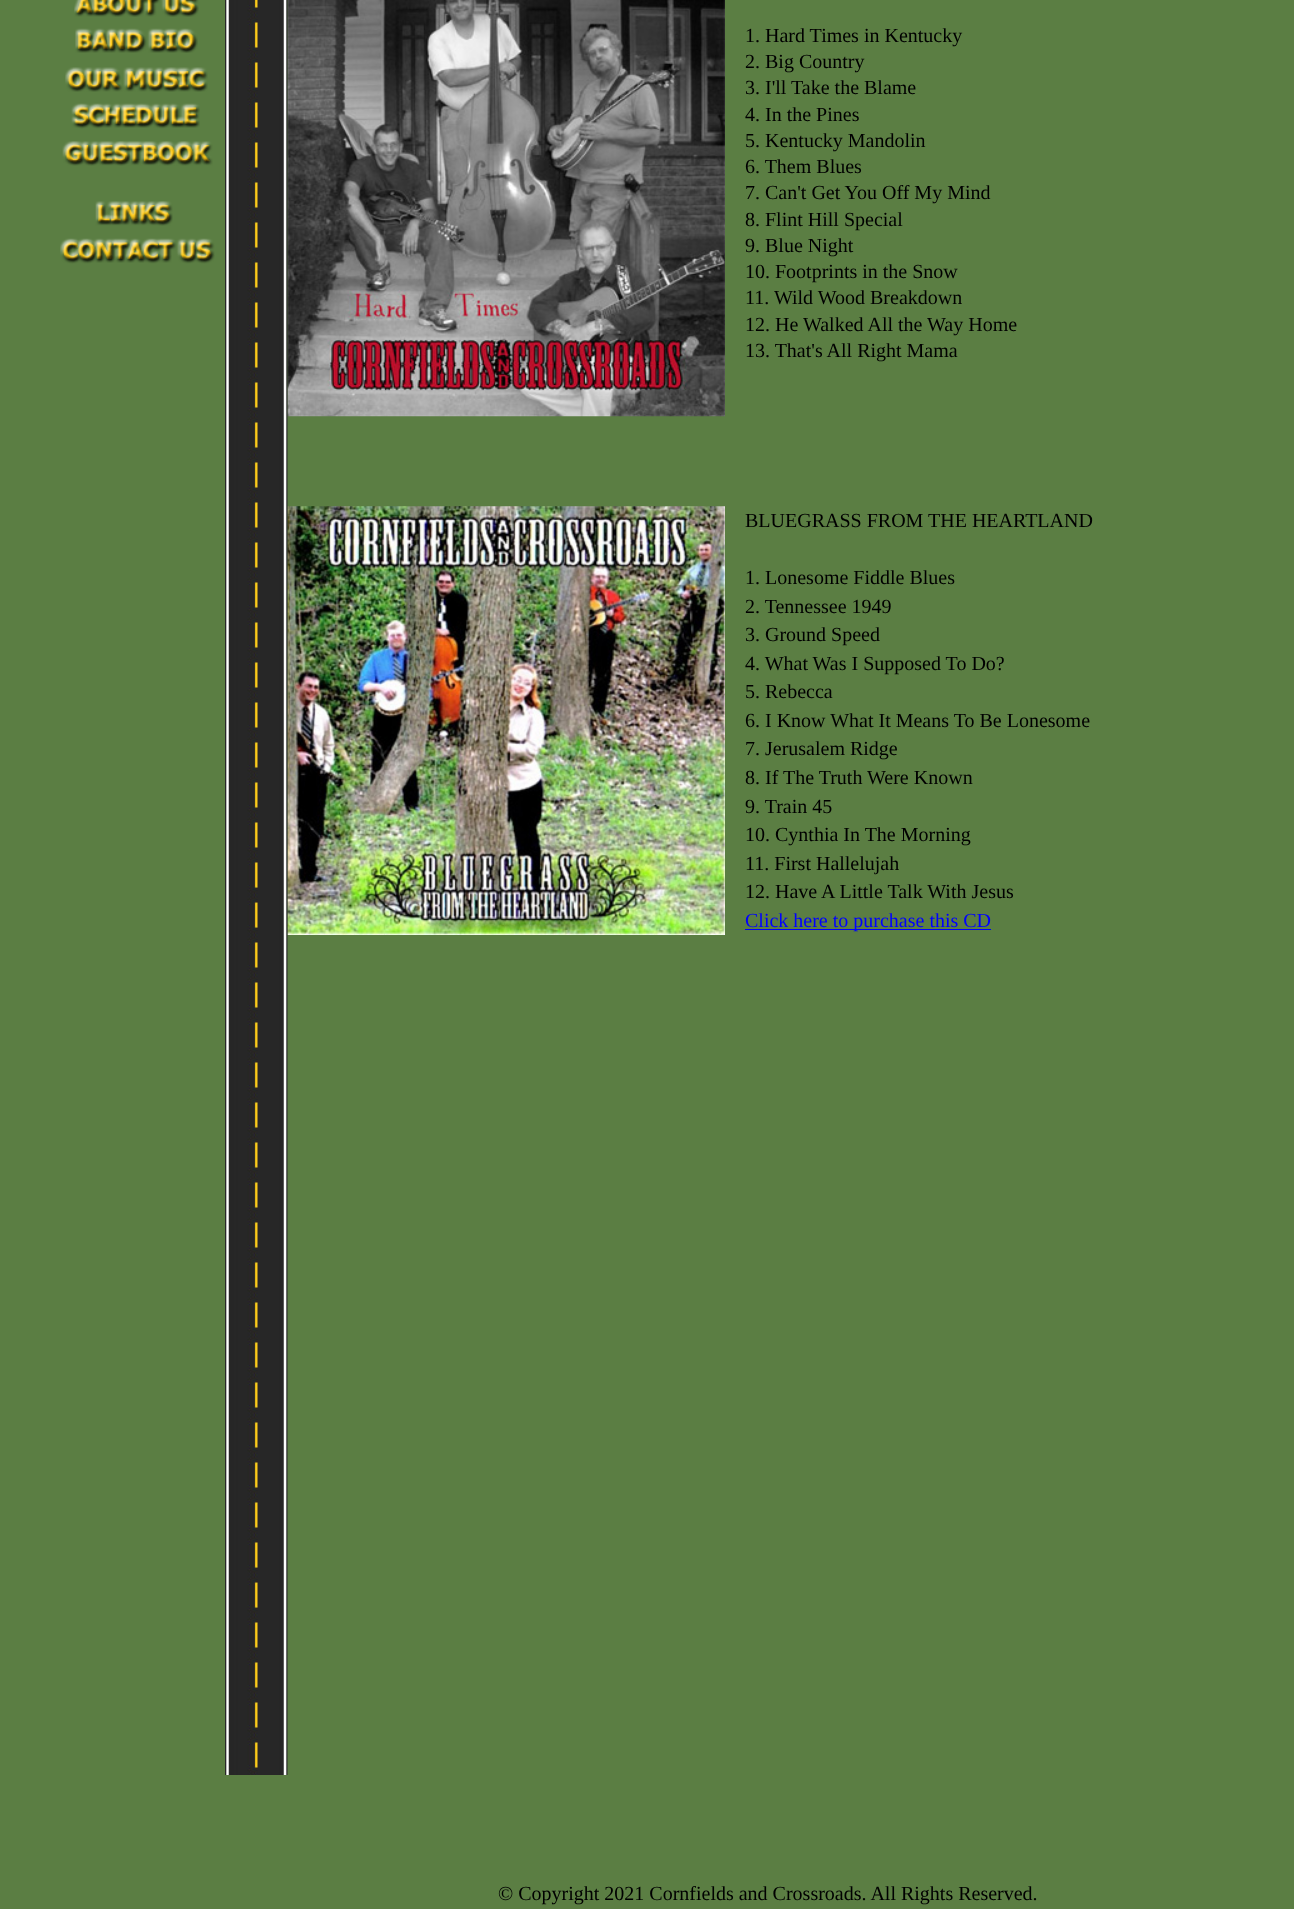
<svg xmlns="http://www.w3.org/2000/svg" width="1294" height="1909">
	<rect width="100%" height="100%" fill="#5B7E43" />
	<image x="287" y="0" width="438" height="417" href="assets/img9.png" />
	<image x="225" y="0" width="63" height="95" href="assets/img1.png" />
	<image x="74" y="0" width="125" height="17" href="assets/img2.png" />
	<image x="75" y="28" width="123" height="25" href="assets/img3.png" />
	<image x="65" y="67" width="143" height="25" href="assets/img4.png" />
	<image x="71" y="103" width="129" height="26" href="assets/img5.png" />
	<image x="62" y="141" width="151" height="25" href="assets/img6.png" />
	<image x="95" y="201" width="78" height="25" href="assets/img7.png" />
	<image x="60" y="238" width="155" height="26" href="assets/img8.png" />
	<g font-family="Liberation Serif" font-size="20" fill="#000000">
		<text x="745" y="42">1. Hard Times in Kentucky</text>
		<text x="745" y="68">2. Big Country</text>
		<text x="745" y="94">3. I'll Take the Blame</text>
		<text x="745" y="121">4. In the Pines</text>
		<text x="745" y="147">5. Kentucky Mandolin</text>
		<text x="745" y="173">6. Them Blues</text>
		<text x="745" y="199">7. Can't Get You Off My Mind</text>
		<text x="745" y="226">8. Flint Hill Special</text>
		<text x="745" y="252">9. Blue Night</text>
		<text x="745" y="278">10. Footprints in the Snow</text>
		<text x="745" y="304">11. Wild Wood Breakdown</text>
		<text x="745" y="331">12. He Walked All the Way Home</text>
		<text x="745" y="357">13. That's All Right Mama</text>
	</g>
	<image x="287" y="506" width="438" height="429" href="assets/img10.png" />
	<g font-family="Liberation Serif" font-size="20" fill="#000000">
		<text x="745" y="527">BLUEGRASS FROM THE HEARTLAND</text>
		<text x="745" y="584">1. Lonesome Fiddle Blues</text>
		<text x="745" y="613">2. Tennessee 1949</text>
		<text x="745" y="641">3. Ground Speed</text>
		<text x="745" y="670">4. What Was I Supposed To Do?</text>
		<text x="745" y="698">5. Rebecca</text>
		<text x="745" y="727">6. I Know What It Means To Be Lonesome</text>
		<text x="745" y="755">7. Jerusalem Ridge</text>
		<text x="745" y="784">8. If The Truth Were Known</text>
		<text x="745" y="813">9. Train 45</text>
		<text x="745" y="841">10. Cynthia In The Morning</text>
		<text x="745" y="870">11. First Hallelujah</text>
		<text x="745" y="898">12. Have A Little Talk With Jesus</text>
	</g>
	<rect x="745" y="929" width="246" height="1" fill="#0000FF" />
	<text x="745" y="927" font-family="Liberation Serif" font-size="20" fill="#0000FF">Click here to purchase this CD</text>
	<image x="225" y="95" width="63" height="120" href="assets/img11.png" />
	<image x="225" y="215" width="63" height="120" href="assets/img12.png" />
	<image x="225" y="335" width="63" height="120" href="assets/img13.png" />
	<image x="225" y="455" width="63" height="120" href="assets/img14.png" />
	<image x="225" y="575" width="63" height="120" href="assets/img15.png" />
	<image x="225" y="695" width="63" height="120" href="assets/img16.png" />
	<image x="225" y="815" width="63" height="120" href="assets/img17.png" />
	<image x="225" y="935" width="63" height="120" href="assets/img18.png" />
	<image x="225" y="1055" width="63" height="120" href="assets/img18.png" />
	<image x="225" y="1175" width="63" height="120" href="assets/img18.png" />
	<image x="225" y="1295" width="63" height="120" href="assets/img18.png" />
	<image x="225" y="1415" width="63" height="120" href="assets/img18.png" />
	<image x="225" y="1535" width="63" height="120" href="assets/img19.png" />
	<image x="225" y="1655" width="63" height="120" href="assets/img18.png" />
	<text x="498" y="1900" font-family="Liberation Serif" font-size="20" fill="#000000">© Copyright 2021 Cornfields and Crossroads. All Rights Reserved.</text>
</svg>
